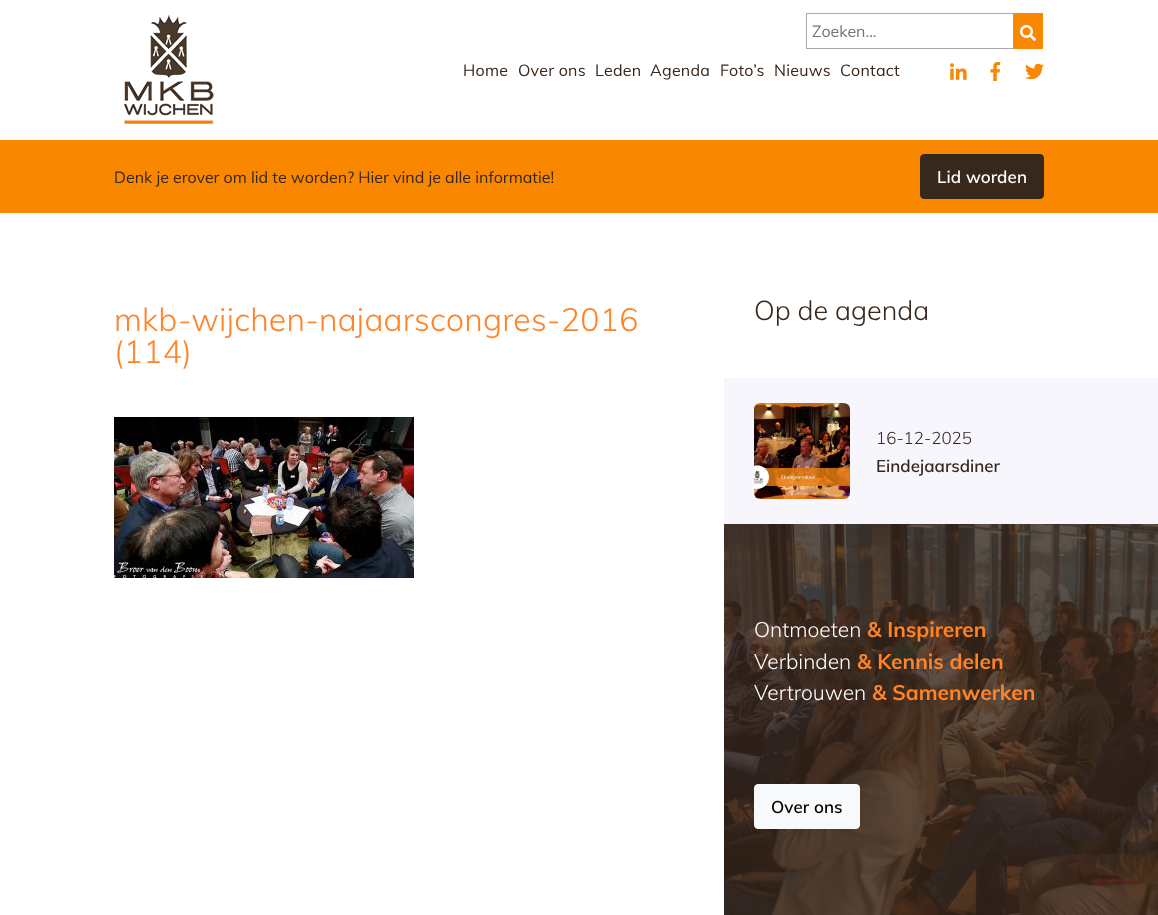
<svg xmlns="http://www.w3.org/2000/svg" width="1158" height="915">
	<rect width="100%" height="100%" fill="#FFFFFF" />
	<image x="124" y="15" width="90" height="109" href="assets/img1.png" />
	<rect x="806.5" y="13.5" width="207" height="35" fill="none" stroke="#AAAAAA" />
	<text x="812" y="37" font-family="Muli" font-size="16" fill="#757575">Zoeken...</text>
	<rect x="1013" y="13" width="30" height="36" fill="#FA8700" />
	<image x="1020" y="25" width="16" height="16" href="assets/img2.png" />
	<image x="950" y="63" width="17" height="17" href="assets/img3.png" />
	<image x="990" y="62" width="11" height="19" href="assets/img4.png" />
	<image x="1025" y="63" width="19" height="17" href="assets/img5.png" />
	<g font-family="Muli" font-size="16" letter-spacing="0.25" fill="#38271B">
		<text x="463" y="76">Home</text>
		<text x="518" y="76">Over ons</text>
		<text x="595" y="76">Leden</text>
		<text x="650" y="76">Agenda</text>
		<text x="720" y="76">Foto’s</text>
		<text x="774" y="76">Nieuws</text>
		<text x="840" y="76">Contact</text>
	</g>
	<rect x="0" y="140" width="1158" height="73" fill="#FA8700" />
	<text x="114" y="183" font-family="Muli" font-size="16" fill="#38271B">Denk je erover om lid te worden? Hier vind je alle informatie!</text>
	<rect x="920.5" y="154.5" width="123" height="44" rx="3.5" fill="#38271B" stroke="#38271B" />
	<text x="937" y="183" font-family="Muli" font-size="17" font-weight="600" letter-spacing="0.1" fill="#FFFFFF">Lid worden</text>
	<g font-family="Muli" font-size="32" font-weight="300" letter-spacing="0.25" fill="#FF8328">
		<text x="114" y="331">mkb-wijchen-najaarscongres-2016</text>
		<text x="114" y="363">(114)</text>
	</g>
	<image x="114" y="417" width="300" height="161" href="assets/img6.png" />
	<text x="754" y="320" font-family="Muli" font-size="27" font-weight="300" fill="#38271B">Op de agenda</text>
	<rect x="724" y="378" width="434" height="146" fill="#F6F6FC" />
	<image x="754" y="403" width="96" height="96" href="assets/img7.png" />
	<text x="876" y="444" font-family="Muli" font-size="17" font-weight="300" fill="#38271B">16-12-2025</text>
	<text x="876" y="472" font-family="Muli" font-size="17" font-weight="600" fill="#38271B">Eindejaarsdiner</text>
	<image x="724" y="524" width="434" height="391" href="assets/img8.png" />
	<text x="754" y="637" font-family="Muli" font-size="21" font-weight="300" fill="#FFFFFF">Ontmoeten</text>
	<text x="867" y="637" font-family="Muli" font-size="21" font-weight="700" fill="#FF8328">&amp; Inspireren</text>
	<text x="754" y="669" font-family="Muli" font-size="21" font-weight="300" fill="#FFFFFF">Verbinden</text>
	<text x="857" y="669" font-family="Muli" font-size="21" font-weight="700" fill="#FF8328">&amp; Kennis delen</text>
	<text x="754" y="700" font-family="Muli" font-size="21" font-weight="300" fill="#FFFFFF">Vertrouwen</text>
	<text x="872" y="700" font-family="Muli" font-size="21" font-weight="700" fill="#FF8328">&amp; Samenwerken</text>
	<rect x="754.5" y="784.5" width="105" height="44" rx="3.5" fill="#F8F9FA" stroke="#F8F9FA" />
	<text x="771" y="813" font-family="Muli" font-size="17" font-weight="600" letter-spacing="0.1" fill="#000000">Over ons</text>
</svg>
